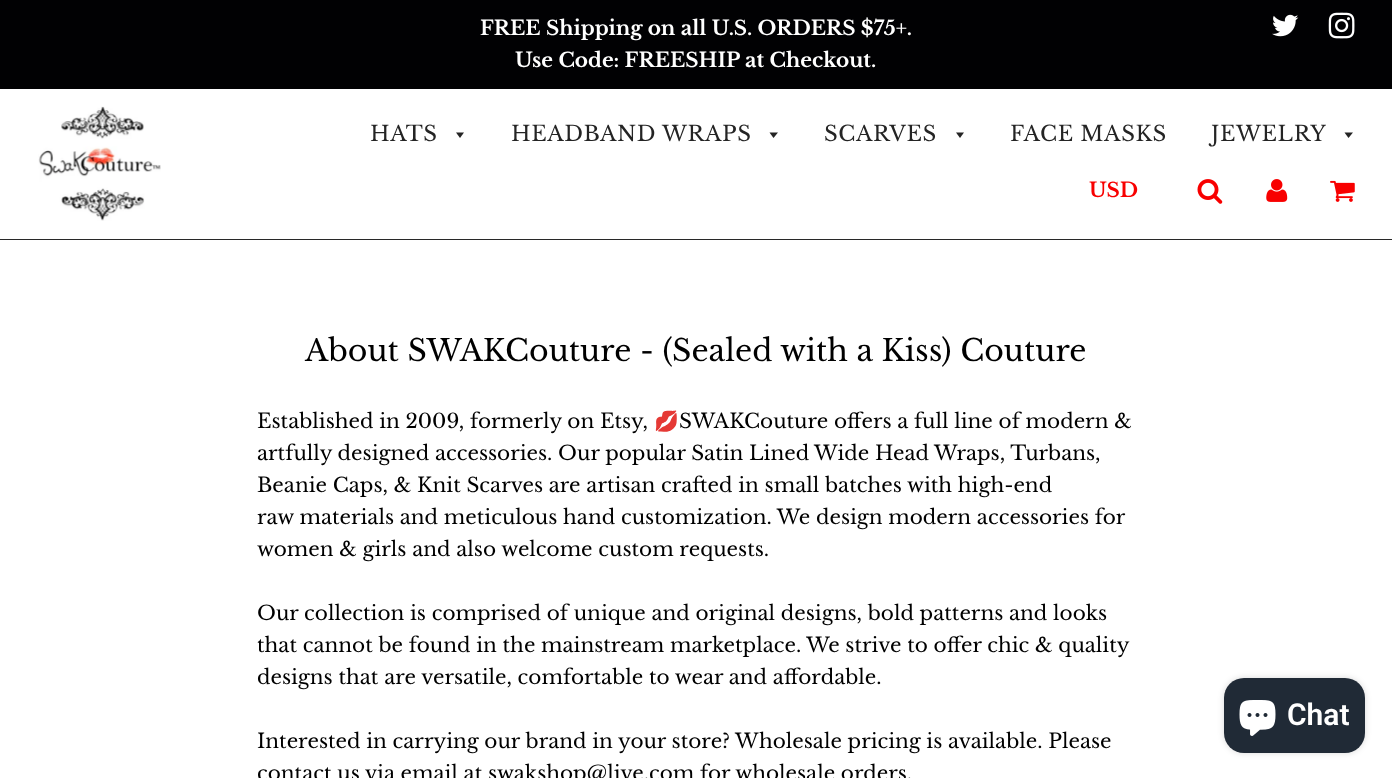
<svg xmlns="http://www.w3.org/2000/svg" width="1392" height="778">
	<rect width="100%" height="100%" fill="#FFFFFF" />
	<rect x="0" y="0" width="1392" height="89" fill="#010103" />
	<g font-family="Libre Baskerville" font-size="20" font-weight="700" fill="#FFFFFF">
		<text x="480" y="35">FREE Shipping on all U.S. ORDERS $75+.</text>
		<text x="515" y="67">Use Code: FREESHIP at Checkout.</text>
	</g>
	<image x="1272" y="14" width="27" height="23" href="assets/img1.png" />
	<image x="1328" y="12" width="27" height="27" href="assets/img2.png" />
	<rect x="0" y="239" width="1392" height="1" fill="#282828" />
	<image x="38" y="106" width="123" height="115" href="assets/img3.png" />
	<text x="370" y="141" font-family="Libre Baskerville" font-size="21.25" letter-spacing="0.6" fill="#242424">HATS</text>
	<path d="M456 132.5L460 138L464 132.5Z" fill="#242424" />
	<text x="511" y="141" font-family="Libre Baskerville" font-size="21.25" letter-spacing="0.6" fill="#242424">HEADBAND WRAPS</text>
	<path d="M769.5 132.5L773.5 138L778 132.5Z" fill="#242424" />
	<text x="824" y="141" font-family="Libre Baskerville" font-size="21.25" letter-spacing="0.6" fill="#242424">SCARVES</text>
	<path d="M956 132.5L960 138L964 132.5Z" fill="#242424" />
	<g font-family="Libre Baskerville" font-size="21.25" letter-spacing="0.6" fill="#242424">
		<text x="1010" y="141">FACE MASKS</text>
		<text x="1211" y="141">JEWELRY</text>
	</g>
	<path d="M1344.5 132.5L1348.5 138L1353 132.5Z" fill="#242424" />
	<text x="1089" y="197" font-family="Libre Baskerville" font-size="20" font-weight="700" fill="#F80000">USD</text>
	<image x="1197" y="179" width="26" height="25" href="assets/img4.png" />
	<image x="1266" y="179" width="22" height="23" href="assets/img5.png" />
	<image x="1330" y="180" width="25" height="22" href="assets/img6.png" />
	<text x="305" y="361" font-family="Libre Baskerville" font-size="30" fill="#000000">About SWAKCouture - (Sealed with a Kiss) Couture</text>
	<text x="257" y="428" font-family="Libre Baskerville" font-size="20" fill="#000000">Established in 2009, formerly on Etsy,</text>
	<text x="654" y="428" font-family="Noto Color Emoji" font-size="20" fill="#000000">💋</text>
	<g font-family="Libre Baskerville" font-size="20" fill="#000000">
		<text x="679" y="428">SWAKCouture offers a full line of modern &amp;</text>
		<text x="257" y="460">artfully designed accessories. Our popular Satin Lined Wide Head Wraps, Turbans,</text>
		<text x="257" y="492">Beanie Caps, &amp; Knit Scarves are artisan crafted in small batches with high-end</text>
		<text x="257" y="524">raw materials and meticulous hand customization. We design modern accessories for</text>
		<text x="257" y="556">women &amp; girls and also welcome custom requests.</text>
		<text x="257" y="620">Our collection is comprised of unique and original designs, bold patterns and looks</text>
		<text x="257" y="652">that cannot be found in the mainstream marketplace. We strive to offer chic &amp; quality</text>
		<text x="257" y="684">designs that are versatile, comfortable to wear and affordable.</text>
		<text x="257" y="748">Interested in carrying our brand in your store? Wholesale pricing is available. Please</text>
		<text x="257" y="780">contact us via email at swakshop@live.com for wholesale orders.</text>
	</g>
	<rect x="1224" y="678" width="141" height="75" rx="20" fill="#000000" fill-opacity="0.15" filter="blur(3px)" />
	<rect x="1224" y="678" width="141" height="75" rx="20" fill="#202A36" />
	<image x="1239" y="700" width="37" height="36" href="assets/img7.png" />
	<text x="1287" y="725" font-family="Roboto" font-size="30" font-weight="600" fill="#FFFFFF">Chat</text>
</svg>
